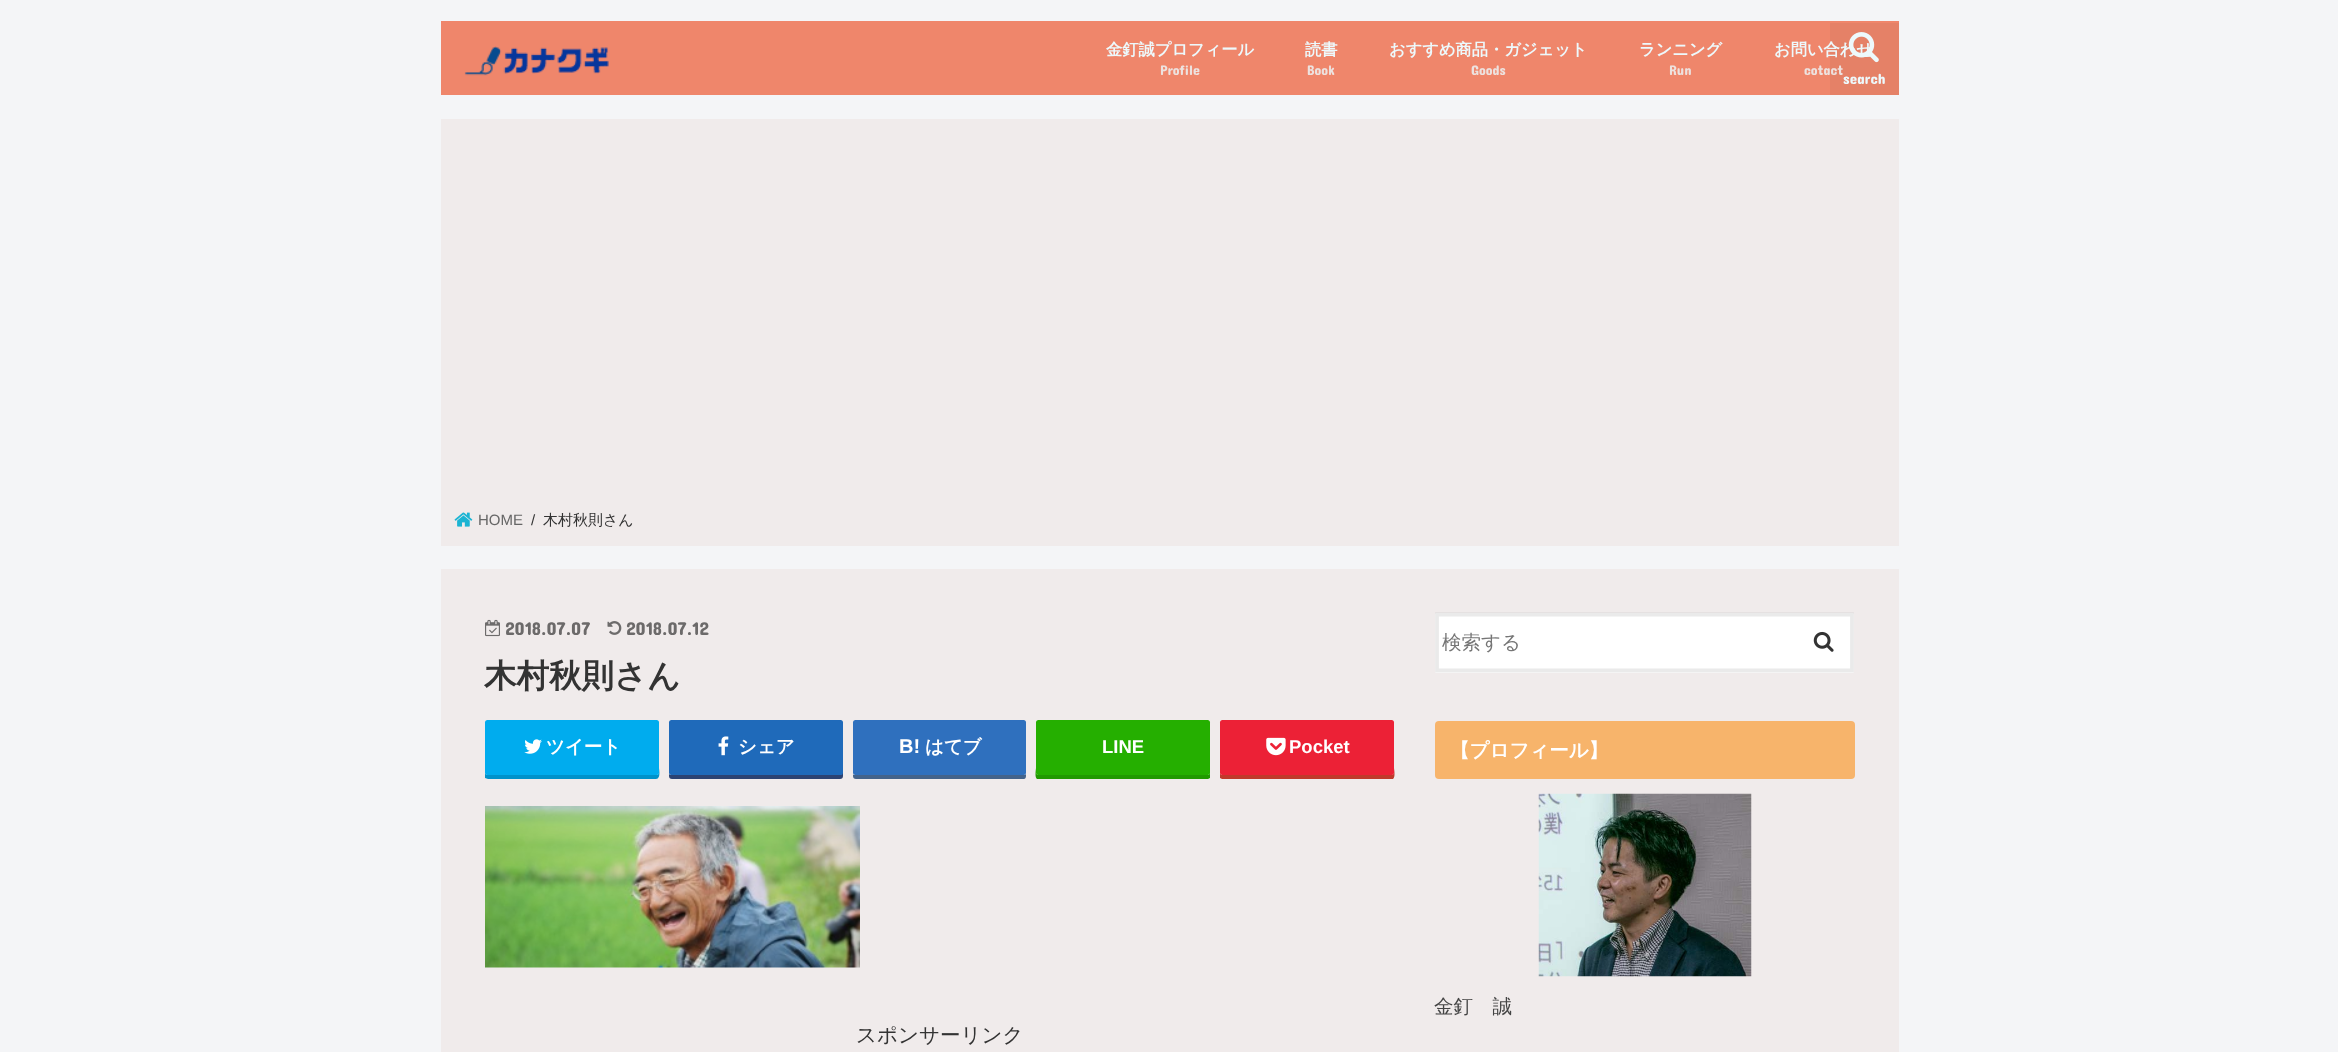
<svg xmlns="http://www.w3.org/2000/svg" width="2338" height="1052">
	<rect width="100%" height="100%" fill="#F4F5F7" />
	<rect x="441" y="21" width="1458" height="74" fill="#EF866B" />
	<image x="464" y="46" width="145" height="30" href="assets/img1.png" />
	<text x="1106" y="55" font-family="WenQuanYi Zen Hei" font-size="16.25" font-weight="700" fill="#EDF9FC">金釘誠プロフィール</text>
	<text x="1160" y="75" font-family="Concert One" font-size="14" fill="#EDE2DF">Profile</text>
	<text x="1305" y="55" font-family="WenQuanYi Zen Hei" font-size="16.25" font-weight="700" fill="#EDF9FC">読書</text>
	<text x="1307" y="75" font-family="Concert One" font-size="14" fill="#EDE2DF">Book</text>
	<text x="1389" y="55" font-family="WenQuanYi Zen Hei" font-size="16.25" font-weight="700" fill="#EDF9FC">おすすめ商品・ガジェット</text>
	<text x="1471" y="75" font-family="Concert One" font-size="14" fill="#EDE2DF">Goods</text>
	<text x="1639" y="55" font-family="WenQuanYi Zen Hei" font-size="16.25" font-weight="700" fill="#EDF9FC">ランニング</text>
	<text x="1669" y="75" font-family="Concert One" font-size="14" fill="#EDE2DF">Run</text>
	<rect x="1830" y="23" width="69" height="72" fill="#E58167" />
	<image x="1848" y="32" width="31" height="31" href="assets/img2.png" />
	<text x="1774" y="55" font-family="WenQuanYi Zen Hei" font-size="16.25" font-weight="700" fill="#EDF9FC">お問い合わせ</text>
	<text x="1804" y="75" font-family="Concert One" font-size="14" fill="#EDE2DF">cotact</text>
	<text x="1843" y="84" font-family="Concert One" font-size="15" fill="#EDF9FC">search</text>
	<rect x="441" y="119" width="1458" height="427" fill="#DDDDDD" filter="blur(0.5px)" />
	<rect x="441" y="119" width="1458" height="427" fill="#F0EBEB" />
	<image x="454" y="512" width="19" height="15" href="assets/img3.png" />
	<text x="478" y="525" font-family="Liberation Sans" font-size="15" fill="#666666">HOME</text>
	<text x="531" y="525" font-family="Liberation Sans" font-size="15" fill="#333333">/</text>
	<text x="543" y="525" font-family="WenQuanYi Zen Hei" font-size="15" font-weight="500" fill="#333333">木村秋則さん</text>
	<rect x="441" y="569" width="1458" height="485" fill="#DDDDDD" filter="blur(0.5px)" />
	<rect x="441" y="569" width="1458" height="483" fill="#F0EBEB" />
	<image x="485" y="619" width="15" height="18" href="assets/img4.png" />
	<text x="505" y="635" font-family="Concert One" font-size="18.5" fill="#6C6A6A">2018.07.07</text>
	<image x="607" y="621" width="15" height="14" href="assets/img5.png" />
	<text x="626" y="635" font-family="Concert One" font-size="18.5" fill="#6C6A6A">2018.07.12</text>
	<text x="484" y="687" font-family="WenQuanYi Zen Hei" font-size="32.5" font-weight="700" fill="#333333">木村秋則さん</text>
	<path d="M485 772V778L488 779H656C661 779 659 769 659 768V725V772C659 774 658 775 656 775H488C486 775 485 774 485 772Z" fill="#0092CA" />
	<rect x="485" y="720" width="174" height="55" rx="2.5" fill="#00ACEE" />
	<image x="524" y="739" width="18" height="15" href="assets/img6.png" />
	<text x="546" y="753" font-family="WenQuanYi Zen Hei" font-size="18.5" font-weight="700" fill="#FFFFFF">ツイート</text>
	<path d="M669 774V776C669 778 670 779 672 779H840C842 779 843 778 843 776V726L842 725V772C842 774 841 775 840 775H671C670 775 669 774 669 774Z" fill="#2C4373" />
	<rect x="669" y="720" width="174" height="55" rx="2.5" fill="#1F6ABA" />
	<image x="718" y="736" width="11" height="20" href="assets/img7.png" />
	<text x="738" y="753" font-family="WenQuanYi Zen Hei" font-size="18.5" font-weight="700" fill="#FFFFFF">シェア</text>
	<path d="M853 774V776C853 778 854 779 856 779H1024C1025 779 1026 778 1026 776V774C1026 774 1025 775 1024 775H855C854 775 853 775 853 774Z" fill="#43638B" />
	<rect x="853" y="720" width="173" height="55" rx="2.5" fill="#2F70BE" />
	<text x="899" y="753" font-family="Liberation Sans" font-size="20" font-weight="700" fill="#FFFFFF">B!</text>
	<text x="925" y="753" font-family="WenQuanYi Zen Hei" font-size="18.5" font-weight="700" fill="#FFFFFF">はてブ</text>
	<path d="M1036 725V768C1036 769 1034 779 1038 779H1208L1210 778V772C1210 774 1209 775 1208 775H1039C1037 775 1036 774 1036 772Z" fill="#219900" />
	<rect x="1036" y="720" width="174" height="55" rx="2.5" fill="#25AF00" />
	<text x="1102" y="753" font-family="Liberation Sans" font-size="18.5" font-weight="700" fill="#FFFFFF">LINE</text>
	<path d="M1220 772V778L1222 779H1392C1396 779 1394 769 1394 768V725V772C1394 774 1393 775 1391 775H1222C1221 775 1220 774 1220 772Z" fill="#C0392B" />
	<rect x="1220" y="720" width="174" height="55" rx="2.5" fill="#EC2136" />
	<image x="1266" y="737" width="20" height="19" href="assets/img8.png" />
	<text x="1289" y="753" font-family="Liberation Sans" font-size="18.5" font-weight="700" fill="#FFFFFF">Pocket</text>
	<image x="485" y="806" width="375" height="162" href="assets/img9.png" />
	<text x="856" y="1042" font-family="WenQuanYi Zen Hei" font-size="20.5" font-weight="500" fill="#333333">スポンサーリンク</text>
	<rect x="1435" y="613" width="419" height="60" rx="1" fill="#FFFFFF" />
	<path d="M1437 614.5H1852V670.5H1437Z" fill="none" stroke="#333333" stroke-opacity="0.1" stroke-width="3.8" />
	<text x="1442" y="649" font-family="WenQuanYi Zen Hei" font-size="19.5" font-weight="500" fill="#757575">検索する</text>
	<image x="1813" y="631" width="21" height="21" href="assets/img10.png" />
	<rect x="1435" y="721" width="420" height="58" rx="4" fill="#F7B46B" />
	<text x="1450" y="757" font-family="WenQuanYi Zen Hei" font-size="19.5" font-weight="700" fill="#FFFFFF">【プロフィール】</text>
	<image x="1538" y="793" width="214" height="184" href="assets/img11.png" />
	<text x="1434" y="1013" font-family="WenQuanYi Zen Hei" font-size="19.5" font-weight="500" fill="#444444">金釘　誠</text>
</svg>
